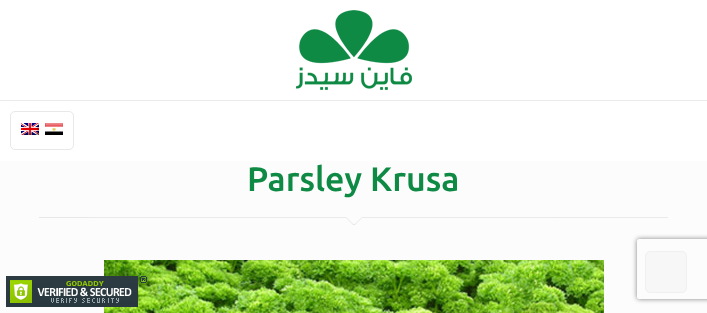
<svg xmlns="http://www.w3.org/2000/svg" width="707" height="313">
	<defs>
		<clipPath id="clip1"><path d="M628 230H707V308H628ZM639 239H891C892 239 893 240 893 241V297C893 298 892 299 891 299H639C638 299 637 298 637 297V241C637 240 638 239 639 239Z" clip-rule="evenodd" /></clipPath>
	</defs>
	<rect width="100%" height="100%" fill="#FCFCFC" />
	<rect x="0" y="0" width="707" height="161" fill="#FFFFFF" />
	<rect x="0" y="100" width="707" height="1" fill="#EBEBEB" />
	<image x="296" y="10" width="116" height="80" href="assets/img1.png" />
	<rect x="10.5" y="111.5" width="63" height="38" rx="4.5" fill="none" stroke="#E8E8E8" />
	<image x="21" y="123" width="18" height="12" href="assets/img2.png" />
	<image x="45" y="123" width="18" height="12" href="assets/img3.png" />
	<image x="39" y="217" width="629" height="8" href="assets/img4.png" />
	<text x="247" y="191" font-family="Ubuntu" font-size="34" font-weight="500" fill="#0F8A44">Parsley Krusa</text>
	<image x="104" y="260" width="500" height="53" href="assets/img5.png" />
	<g clip-path="url(#clip1)">
		<rect x="637" y="239" width="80" height="60" rx="2" fill="#808080" filter="blur(2.5px)" />
	</g>
	<image x="6" y="276" width="141" height="31" href="assets/img6.png" />
	<rect x="645.5" y="251.5" width="41" height="41" rx="4.5" fill="#F7F7F7" stroke="#F0F0F0" />
</svg>
